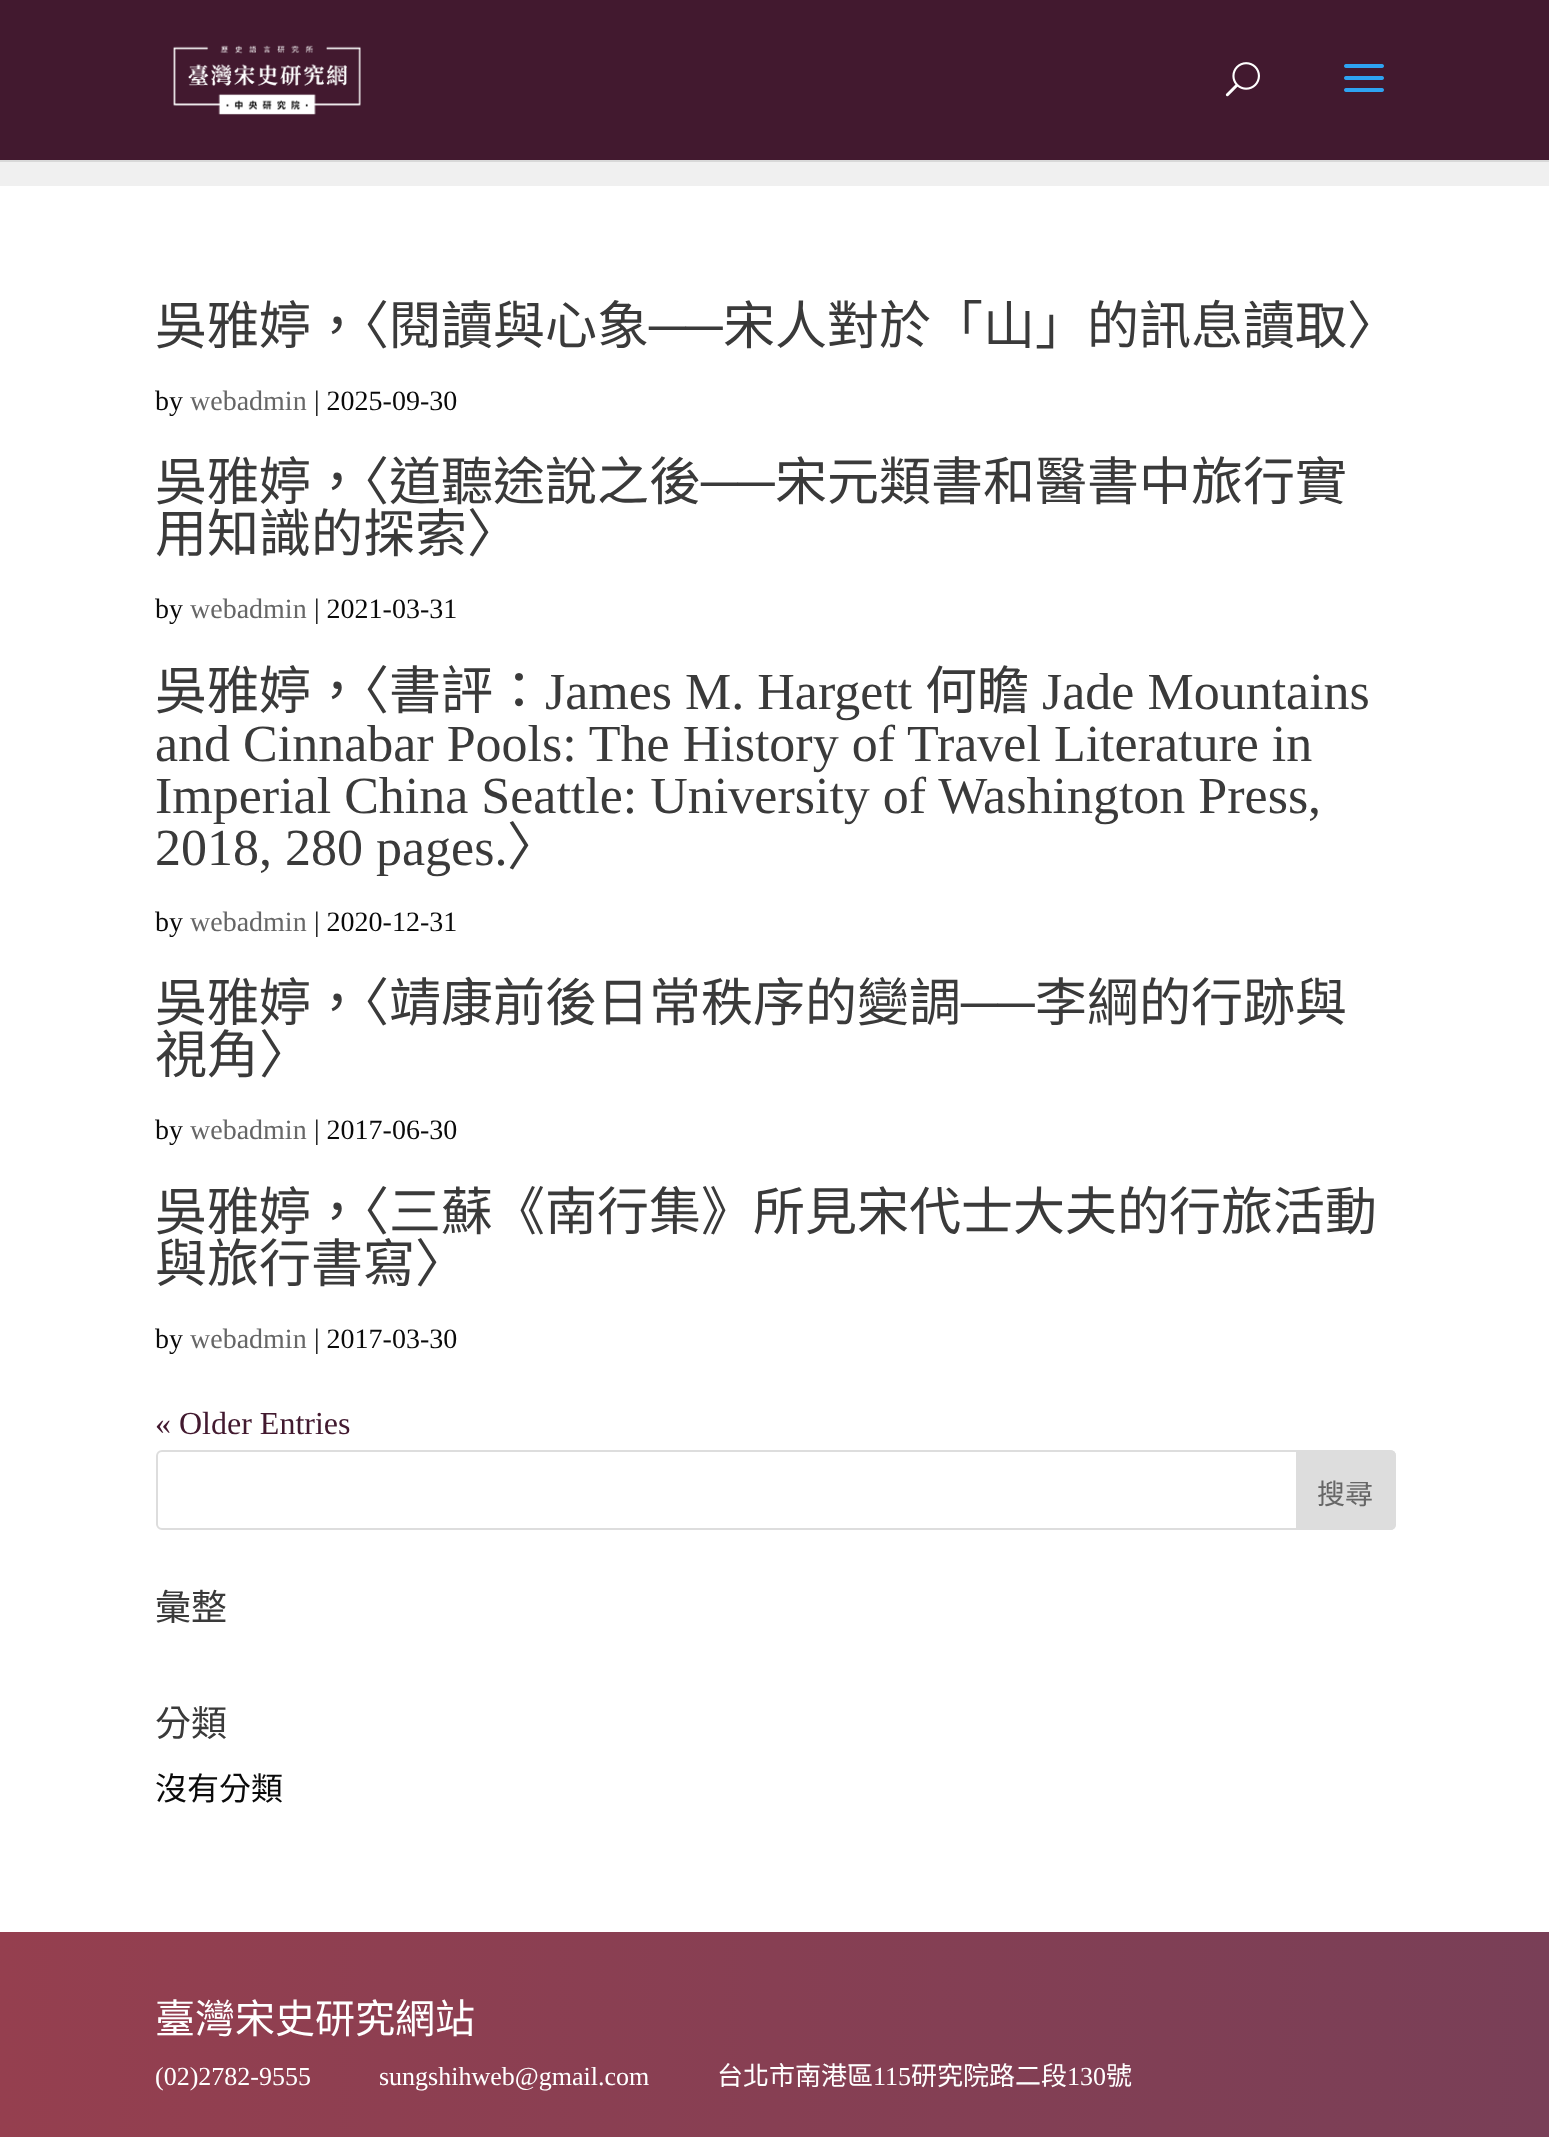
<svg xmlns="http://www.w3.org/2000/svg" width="1549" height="2137">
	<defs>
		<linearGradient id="g1" gradientUnits="userSpaceOnUse" x1="0" y1="2110" x2="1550" y2="2110"><stop offset="0" stop-color="#953F4F" /><stop offset="1" stop-color="#793F57" /></linearGradient>
	</defs>
	<rect width="100%" height="100%" fill="#F0F0F0" />
	<rect x="0" y="160" width="1549" height="2" fill="#D8D8D8" />
	<rect x="0" y="0" width="1549" height="160" fill="#42192F" />
	<image x="173" y="45" width="188" height="70" href="assets/img1.png" />
	<image x="1225" y="62" width="35" height="35" href="assets/img2.png" />
	<image x="1344" y="64" width="40" height="28" href="assets/img3.png" />
	<rect x="0" y="186" width="1549" height="1746" fill="#FFFFFF" />
	<text x="155" y="344" font-family="Noto Sans CJK TC" font-size="52" fill="#3A3A3A">吳雅婷，〈閱讀與心象</text>
	<text x="649" y="344" font-family="Liberation Serif" font-size="52" fill="#3A3A3A">──</text>
	<text x="723" y="344" font-family="Noto Sans CJK TC" font-size="52" fill="#3A3A3A">宋人對於「山」的訊息讀取〉</text>
	<text x="155" y="410" font-family="Liberation Serif" font-size="28" fill="#0A0A0A">by</text>
	<text x="190" y="410" font-family="Liberation Serif" font-size="28" fill="#666666">webadmin</text>
	<text x="314" y="410" font-family="Liberation Serif" font-size="28" fill="#0A0A0A">| 2025-09-30</text>
	<text x="155" y="500" font-family="Noto Sans CJK TC" font-size="52" fill="#3A3A3A">吳雅婷，〈道聽途說之後</text>
	<text x="701" y="500" font-family="Liberation Serif" font-size="52" fill="#3A3A3A">──</text>
	<g font-family="Noto Sans CJK TC" font-size="52" fill="#3A3A3A">
		<text x="775" y="500">宋元類書和醫書中旅行實</text>
		<text x="155" y="552">用知識的探索〉</text>
	</g>
	<text x="155" y="618" font-family="Liberation Serif" font-size="28" fill="#0A0A0A">by</text>
	<text x="190" y="618" font-family="Liberation Serif" font-size="28" fill="#666666">webadmin</text>
	<text x="314" y="618" font-family="Liberation Serif" font-size="28" fill="#0A0A0A">| 2021-03-31</text>
	<text x="155" y="709" font-family="Noto Sans CJK TC" font-size="52" fill="#3A3A3A">吳雅婷，〈書評：</text>
	<text x="545" y="709" font-family="Liberation Serif" font-size="52" fill="#3A3A3A">James M. Hargett</text>
	<text x="925" y="709" font-family="Noto Sans CJK TC" font-size="52" fill="#3A3A3A">何瞻</text>
	<g font-family="Liberation Serif" font-size="52" fill="#3A3A3A">
		<text x="1042" y="709">Jade Mountains</text>
		<text x="155" y="761">and Cinnabar Pools: The History of Travel Literature in</text>
		<text x="155" y="813">Imperial China Seattle: University of Washington Press,</text>
		<text x="155" y="865">2018, 280 pages.</text>
	</g>
	<text x="507" y="865" font-family="Noto Sans CJK TC" font-size="52" fill="#3A3A3A">〉</text>
	<text x="155" y="931" font-family="Liberation Serif" font-size="28" fill="#0A0A0A">by</text>
	<text x="190" y="931" font-family="Liberation Serif" font-size="28" fill="#666666">webadmin</text>
	<text x="314" y="931" font-family="Liberation Serif" font-size="28" fill="#0A0A0A">| 2020-12-31</text>
	<text x="155" y="1021" font-family="Noto Sans CJK TC" font-size="52" fill="#3A3A3A">吳雅婷，〈靖康前後日常秩序的變調</text>
	<text x="961" y="1021" font-family="Liberation Serif" font-size="52" fill="#3A3A3A">──</text>
	<g font-family="Noto Sans CJK TC" font-size="52" fill="#3A3A3A">
		<text x="1035" y="1021">李綱的行跡與</text>
		<text x="155" y="1073">視角〉</text>
	</g>
	<text x="155" y="1139" font-family="Liberation Serif" font-size="28" fill="#0A0A0A">by</text>
	<text x="190" y="1139" font-family="Liberation Serif" font-size="28" fill="#666666">webadmin</text>
	<text x="314" y="1139" font-family="Liberation Serif" font-size="28" fill="#0A0A0A">| 2017-06-30</text>
	<g font-family="Noto Sans CJK TC" font-size="52" fill="#3A3A3A">
		<text x="155" y="1230">吳雅婷，〈三蘇《南行集》所見宋代士大夫的行旅活動</text>
		<text x="155" y="1282">與旅行書寫〉</text>
	</g>
	<text x="155" y="1348" font-family="Liberation Serif" font-size="28" fill="#0A0A0A">by</text>
	<text x="190" y="1348" font-family="Liberation Serif" font-size="28" fill="#666666">webadmin</text>
	<text x="314" y="1348" font-family="Liberation Serif" font-size="28" fill="#0A0A0A">| 2017-03-30</text>
	<text x="155" y="1434" font-family="Liberation Serif" font-size="32" fill="#42192F">« Older Entries</text>
	<rect x="157" y="1451" width="1238" height="78" rx="5" fill="none" stroke="#DDDDDD" stroke-width="2" />
	<path d="M1297 1451H1390C1393 1451 1395 1453 1395 1456V1524C1395 1527 1393 1529 1390 1529H1297Z" fill="#DDDDDD" stroke="#DDDDDD" stroke-width="2" />
	<text x="1317" y="1504" font-family="Noto Sans CJK TC" font-size="28" fill="#666666">搜尋</text>
	<g font-family="Noto Sans CJK TC" font-size="36" fill="#3A3A3A">
		<text x="155" y="1620">彙整</text>
		<text x="155" y="1736">分類</text>
	</g>
	<text x="155" y="1800" font-family="Noto Sans CJK TC" font-size="32" fill="#0A0A0A">沒有分類</text>
	<rect x="0" y="1932" width="1549" height="205" fill="url(#g1)" />
	<text x="155" y="2033" font-family="Noto Sans CJK TC" font-size="40" fill="#FFFFFF">臺灣宋史研究網站</text>
	<g font-family="Liberation Serif" font-size="26" fill="#FFFFFF">
		<text x="155" y="2085">(02)2782-9555</text>
		<text x="379" y="2085">sungshihweb@gmail.com</text>
	</g>
	<text x="717" y="2085" font-family="Noto Sans CJK TC" font-size="26" fill="#FFFFFF">台北市南港區</text>
	<text x="873" y="2085" font-family="Liberation Serif" font-size="26" fill="#FFFFFF">115</text>
	<text x="911" y="2085" font-family="Noto Sans CJK TC" font-size="26" fill="#FFFFFF">研究院路二段</text>
	<text x="1067" y="2085" font-family="Liberation Serif" font-size="26" fill="#FFFFFF">130</text>
	<text x="1106" y="2085" font-family="Noto Sans CJK TC" font-size="26" fill="#FFFFFF">號</text>
</svg>
